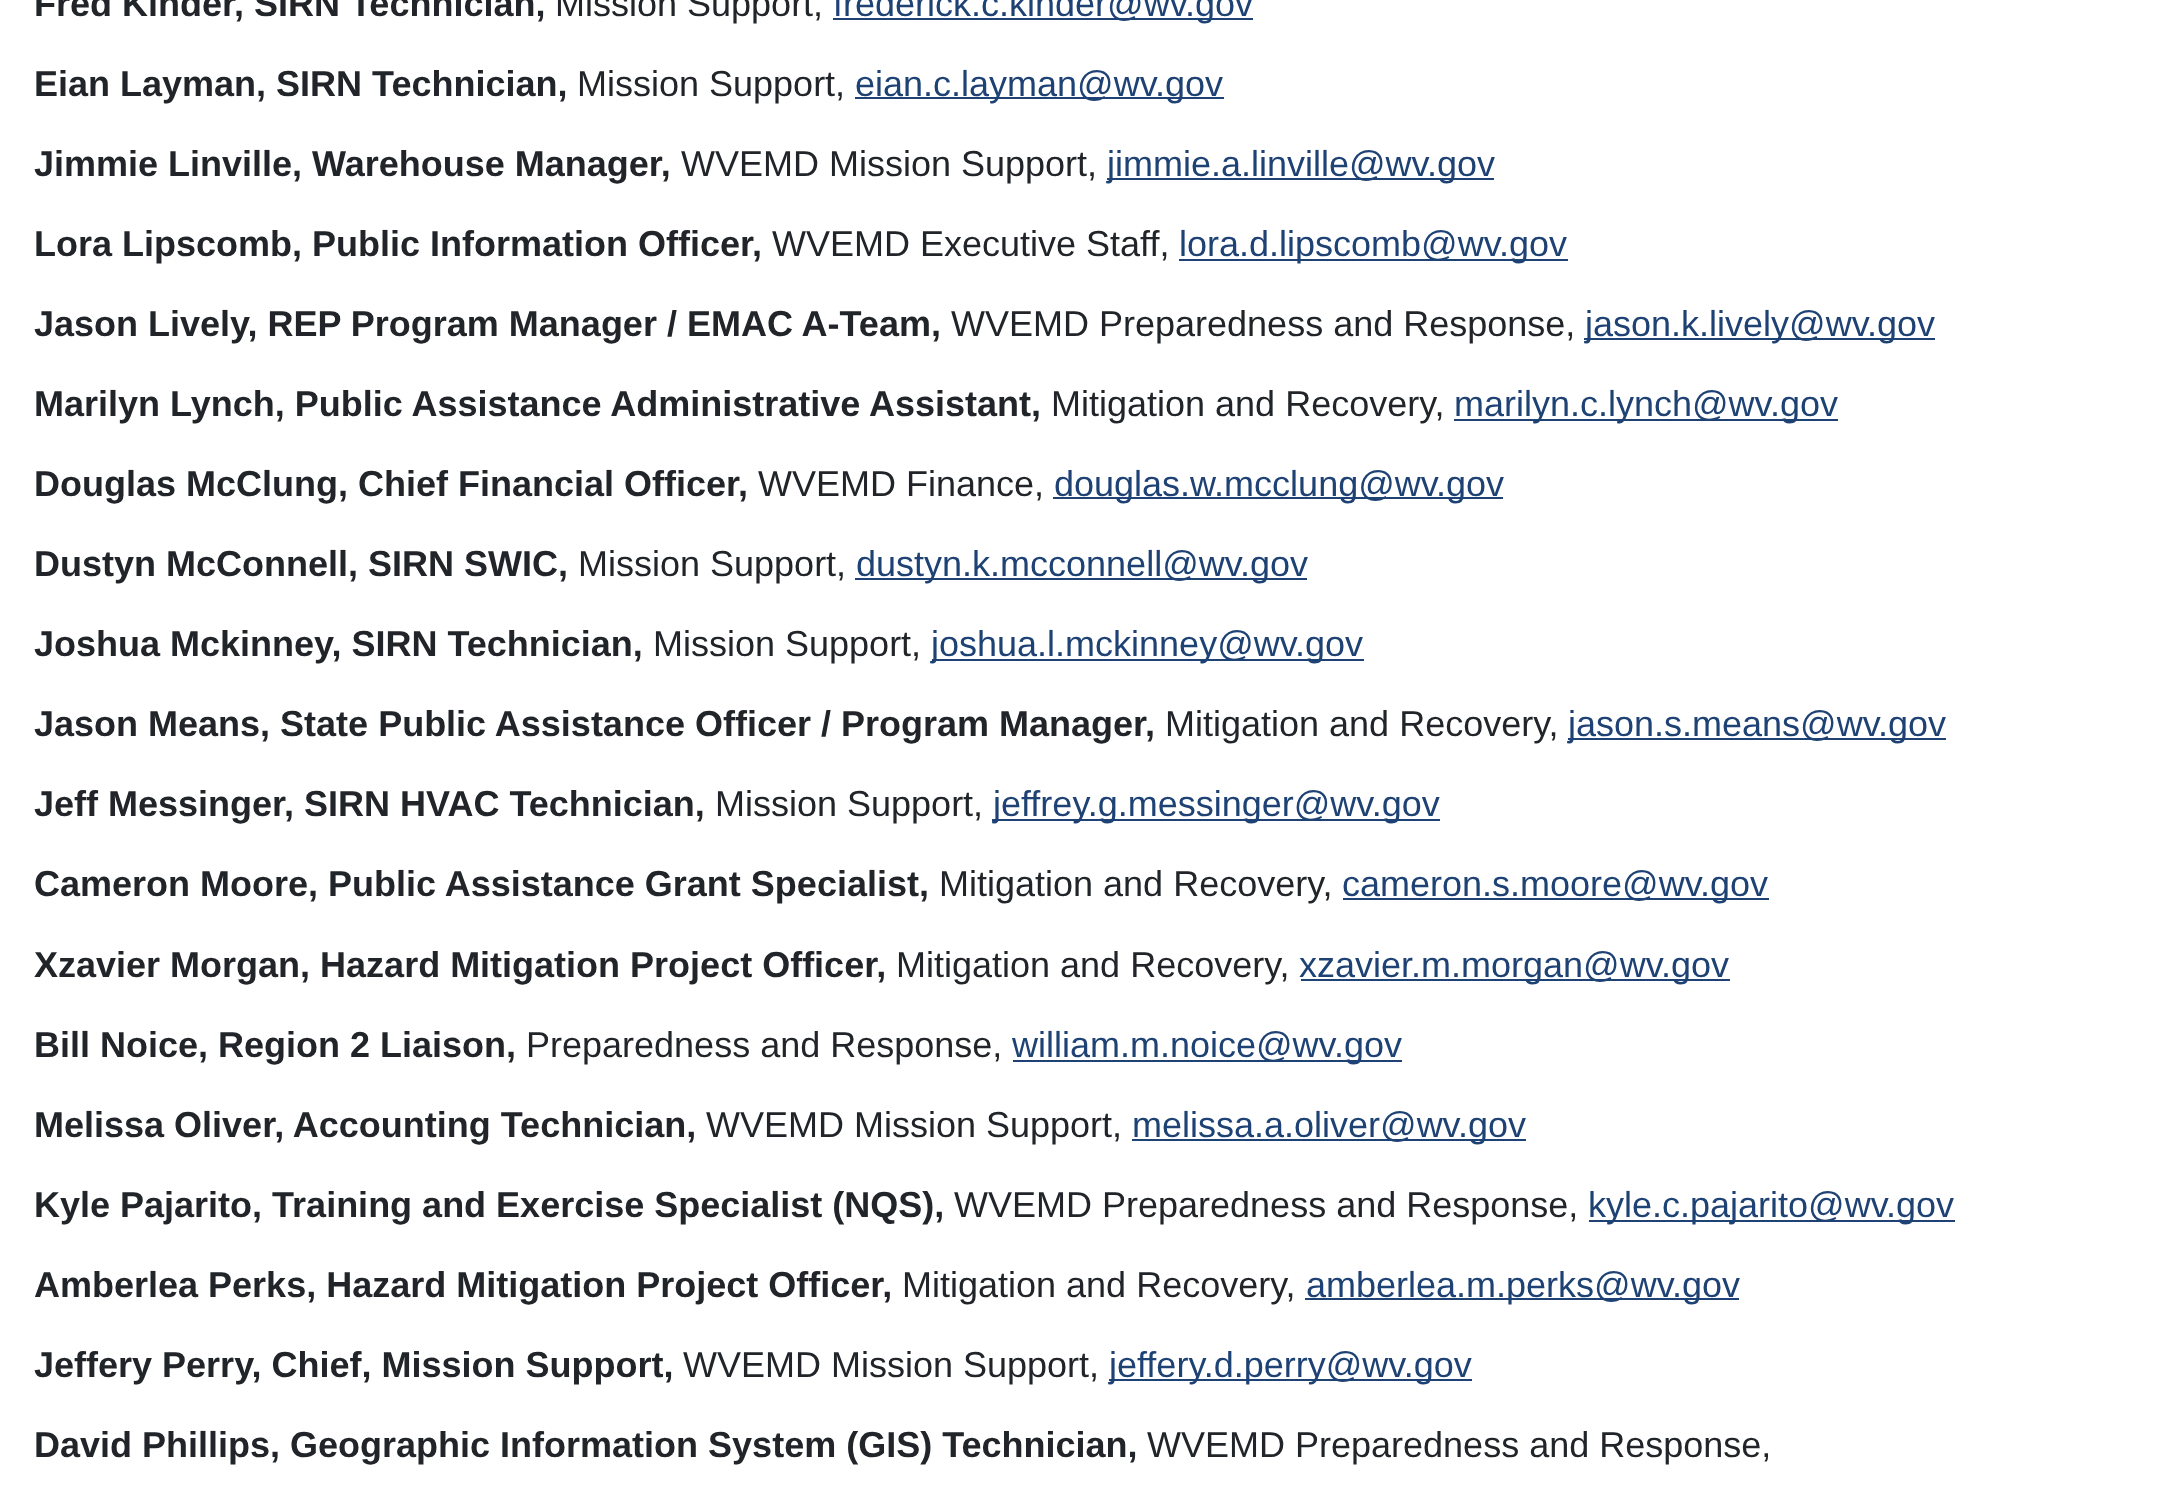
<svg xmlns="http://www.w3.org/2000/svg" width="2184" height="1500">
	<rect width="100%" height="100%" fill="#FFFFFF" />
	<text x="34" y="16" font-family="Liberation Sans" font-size="36" font-weight="700" fill="#212529">Fred Kinder, SIRN Technician,</text>
	<text x="555" y="16" font-family="Liberation Sans" font-size="36" fill="#212529">Mission Support,</text>
	<rect x="833" y="18" width="420" height="2" fill="#1E4274" />
	<text x="833" y="16" font-family="Liberation Sans" font-size="36" fill="#1E4274">frederick.c.kinder@wv.gov</text>
	<text x="34" y="96" font-family="Liberation Sans" font-size="36" font-weight="700" fill="#212529">Eian Layman, SIRN Technician,</text>
	<text x="577" y="96" font-family="Liberation Sans" font-size="36" fill="#212529">Mission Support,</text>
	<rect x="855" y="97" width="369" height="2" fill="#1E4274" />
	<text x="855" y="96" font-family="Liberation Sans" font-size="36" fill="#1E4274">eian.c.layman@wv.gov</text>
	<text x="34" y="176" font-family="Liberation Sans" font-size="36" font-weight="700" fill="#212529">Jimmie Linville, Warehouse Manager,</text>
	<text x="681" y="176" font-family="Liberation Sans" font-size="36" fill="#212529">WVEMD Mission Support,</text>
	<rect x="1107" y="178" width="387" height="2" fill="#1E4274" />
	<text x="1107" y="176" font-family="Liberation Sans" font-size="36" fill="#1E4274">jimmie.a.linville@wv.gov</text>
	<text x="34" y="256" font-family="Liberation Sans" font-size="36" font-weight="700" fill="#212529">Lora Lipscomb, Public Information Officer,</text>
	<text x="772" y="256" font-family="Liberation Sans" font-size="36" fill="#212529">WVEMD Executive Staff,</text>
	<rect x="1179" y="259" width="389" height="2" fill="#1E4274" />
	<text x="1179" y="256" font-family="Liberation Sans" font-size="36" fill="#1E4274">lora.d.lipscomb@wv.gov</text>
	<text x="34" y="336" font-family="Liberation Sans" font-size="36" font-weight="700" fill="#212529">Jason Lively, REP Program Manager / EMAC A-Team,</text>
	<text x="951" y="336" font-family="Liberation Sans" font-size="36" fill="#212529">WVEMD Preparedness and Response,</text>
	<rect x="1584" y="338" width="351" height="2" fill="#1E4274" />
	<text x="1585" y="336" font-family="Liberation Sans" font-size="36" fill="#1E4274">jason.k.lively@wv.gov</text>
	<text x="34" y="416" font-family="Liberation Sans" font-size="36" font-weight="700" fill="#212529">Marilyn Lynch, Public Assistance Administrative Assistant,</text>
	<text x="1051" y="416" font-family="Liberation Sans" font-size="36" fill="#212529">Mitigation and Recovery,</text>
	<rect x="1454" y="419" width="384" height="2" fill="#1E4274" />
	<text x="1454" y="416" font-family="Liberation Sans" font-size="36" fill="#1E4274">marilyn.c.lynch@wv.gov</text>
	<text x="34" y="496" font-family="Liberation Sans" font-size="36" font-weight="700" fill="#212529">Douglas McClung, Chief Financial Officer,</text>
	<text x="758" y="496" font-family="Liberation Sans" font-size="36" fill="#212529">WVEMD Finance,</text>
	<rect x="1053" y="497" width="450" height="2" fill="#1E4274" />
	<text x="1054" y="496" font-family="Liberation Sans" font-size="36" fill="#1E4274">douglas.w.mcclung@wv.gov</text>
	<text x="34" y="576" font-family="Liberation Sans" font-size="36" font-weight="700" fill="#212529">Dustyn McConnell, SIRN SWIC,</text>
	<text x="578" y="576" font-family="Liberation Sans" font-size="36" fill="#212529">Mission Support,</text>
	<rect x="855" y="578" width="452" height="2" fill="#1E4274" />
	<text x="856" y="576" font-family="Liberation Sans" font-size="36" fill="#1E4274">dustyn.k.mcconnell@wv.gov</text>
	<text x="34" y="656" font-family="Liberation Sans" font-size="36" font-weight="700" fill="#212529">Joshua Mckinney, SIRN Technician,</text>
	<text x="653" y="656" font-family="Liberation Sans" font-size="36" fill="#212529">Mission Support,</text>
	<rect x="932" y="659" width="432" height="2" fill="#1E4274" />
	<text x="931" y="656" font-family="Liberation Sans" font-size="36" fill="#1E4274">joshua.l.mckinney@wv.gov</text>
	<text x="34" y="736" font-family="Liberation Sans" font-size="36" font-weight="700" fill="#212529">Jason Means, State Public Assistance Officer / Program Manager,</text>
	<text x="1165" y="736" font-family="Liberation Sans" font-size="36" fill="#212529">Mitigation and Recovery,</text>
	<rect x="1568" y="738" width="378" height="2" fill="#1E4274" />
	<text x="1568" y="736" font-family="Liberation Sans" font-size="36" fill="#1E4274">jason.s.means@wv.gov</text>
	<text x="34" y="816" font-family="Liberation Sans" font-size="36" font-weight="700" fill="#212529">Jeff Messinger, SIRN HVAC Technician,</text>
	<text x="715" y="816" font-family="Liberation Sans" font-size="36" fill="#212529">Mission Support,</text>
	<rect x="992" y="819" width="448" height="2" fill="#1E4274" />
	<text x="993" y="816" font-family="Liberation Sans" font-size="36" fill="#1E4274">jeffrey.g.messinger@wv.gov</text>
	<text x="34" y="896" font-family="Liberation Sans" font-size="36" font-weight="700" fill="#212529">Cameron Moore, Public Assistance Grant Specialist,</text>
	<text x="939" y="896" font-family="Liberation Sans" font-size="36" fill="#212529">Mitigation and Recovery,</text>
	<rect x="1343" y="898" width="426" height="2" fill="#1E4274" />
	<text x="1342" y="896" font-family="Liberation Sans" font-size="36" fill="#1E4274">cameron.s.moore@wv.gov</text>
	<text x="34" y="977" font-family="Liberation Sans" font-size="36" font-weight="700" fill="#212529">Xzavier Morgan, Hazard Mitigation Project Officer,</text>
	<text x="896" y="977" font-family="Liberation Sans" font-size="36" fill="#212529">Mitigation and Recovery,</text>
	<rect x="1301" y="979" width="429" height="2" fill="#1E4274" />
	<text x="1299" y="977" font-family="Liberation Sans" font-size="36" fill="#1E4274">xzavier.m.morgan@wv.gov</text>
	<text x="34" y="1057" font-family="Liberation Sans" font-size="36" font-weight="700" fill="#212529">Bill Noice, Region 2 Liaison,</text>
	<text x="526" y="1057" font-family="Liberation Sans" font-size="36" fill="#212529">Preparedness and Response,</text>
	<rect x="1013" y="1060" width="389" height="2" fill="#1E4274" />
	<text x="1012" y="1057" font-family="Liberation Sans" font-size="36" fill="#1E4274">william.m.noice@wv.gov</text>
	<text x="34" y="1137" font-family="Liberation Sans" font-size="36" font-weight="700" fill="#212529">Melissa Oliver, Accounting Technician,</text>
	<text x="706" y="1137" font-family="Liberation Sans" font-size="36" fill="#212529">WVEMD Mission Support,</text>
	<rect x="1132" y="1139" width="394" height="2" fill="#1E4274" />
	<text x="1132" y="1137" font-family="Liberation Sans" font-size="36" fill="#1E4274">melissa.a.oliver@wv.gov</text>
	<text x="34" y="1217" font-family="Liberation Sans" font-size="36" font-weight="700" fill="#212529">Kyle Pajarito, Training and Exercise Specialist (NQS),</text>
	<text x="954" y="1217" font-family="Liberation Sans" font-size="36" fill="#212529">WVEMD Preparedness and Response,</text>
	<rect x="1589" y="1220" width="366" height="2" fill="#1E4274" />
	<text x="1588" y="1217" font-family="Liberation Sans" font-size="36" fill="#1E4274">kyle.c.pajarito@wv.gov</text>
	<text x="34" y="1297" font-family="Liberation Sans" font-size="36" font-weight="700" fill="#212529">Amberlea Perks, Hazard Mitigation Project Officer,</text>
	<text x="902" y="1297" font-family="Liberation Sans" font-size="36" fill="#212529">Mitigation and Recovery,</text>
	<rect x="1305" y="1298" width="434" height="2" fill="#1E4274" />
	<text x="1306" y="1297" font-family="Liberation Sans" font-size="36" fill="#1E4274">amberlea.m.perks@wv.gov</text>
	<text x="34" y="1377" font-family="Liberation Sans" font-size="36" font-weight="700" fill="#212529">Jeffery Perry, Chief, Mission Support,</text>
	<text x="683" y="1377" font-family="Liberation Sans" font-size="36" fill="#212529">WVEMD Mission Support,</text>
	<rect x="1109" y="1379" width="363" height="2" fill="#1E4274" />
	<text x="1109" y="1377" font-family="Liberation Sans" font-size="36" fill="#1E4274">jeffery.d.perry@wv.gov</text>
	<text x="34" y="1457" font-family="Liberation Sans" font-size="36" font-weight="700" fill="#212529">David Phillips, Geographic Information System (GIS) Technician,</text>
	<text x="1147" y="1457" font-family="Liberation Sans" font-size="36" fill="#212529">WVEMD Preparedness and Response,</text>
</svg>
